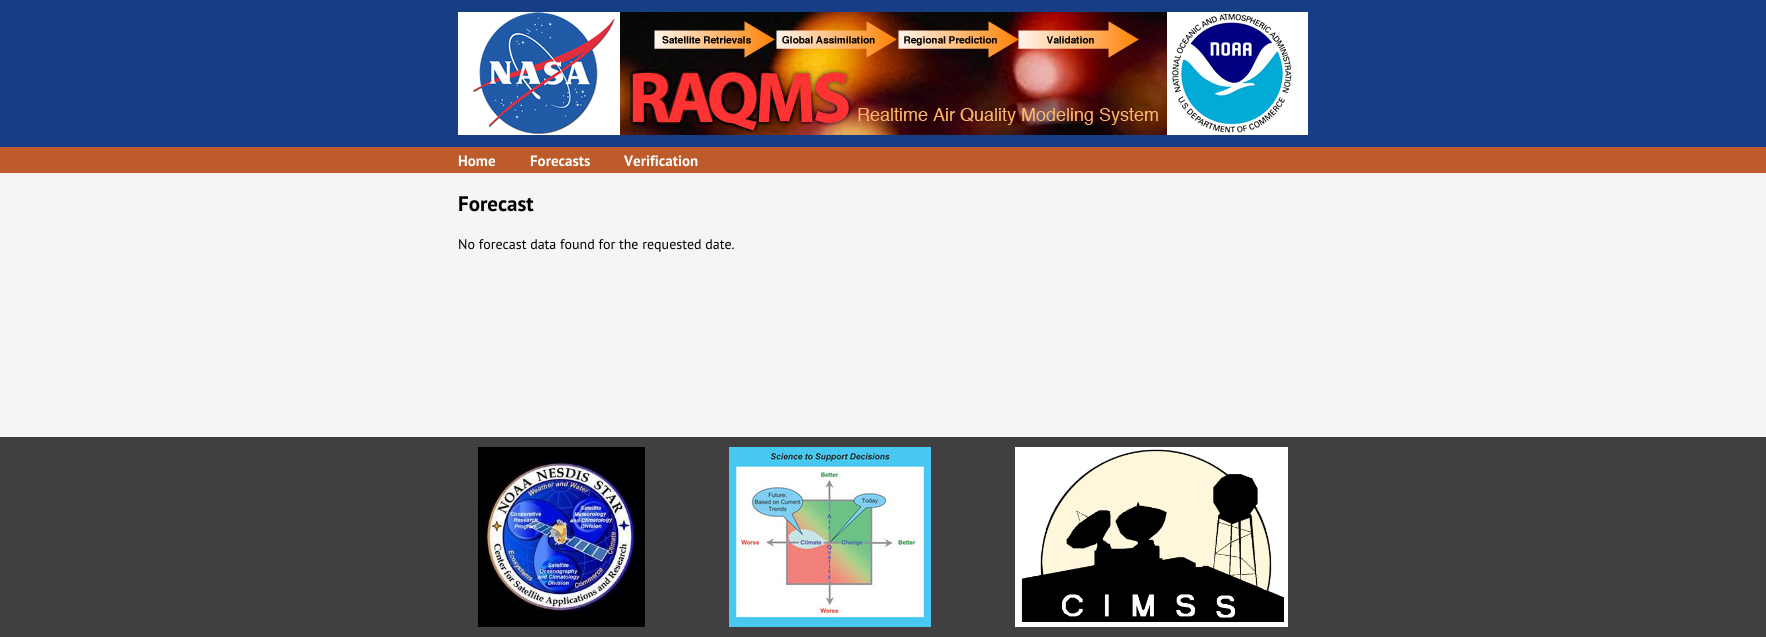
import math
import cairo

surface = cairo.ImageSurface(cairo.Format.RGB24, 1766, 637)
ctx = cairo.Context(surface)
options = cairo.FontOptions()
options.set_hint_metrics(cairo.HintMetrics.OFF)
options.set_hint_style(cairo.HintStyle.NONE)
ctx.set_font_options(options)
ctx.set_miter_limit(4)


def ink(r, g, b):
    ctx.set_source_rgb(r / 255, g / 255, b / 255)


def write(x, y, s, family, size, color, bold=False, italic=False):
    ctx.select_font_face(family, cairo.FontSlant.ITALIC if italic else cairo.FontSlant.NORMAL, cairo.FontWeight.BOLD if bold else cairo.FontWeight.NORMAL)
    ctx.set_font_size(size)
    ink(*color)
    ctx.move_to(x, y)
    ctx.show_text(s)


def block(x, y, w, h, *color):
    ink(*color)
    ctx.rectangle(x, y, w, h)
    ctx.fill()


def paste(path, x, y, w, h):
    ctx.save()
    ctx.set_source_surface(cairo.ImageSurface.create_from_png(path), x, y)
    ctx.rectangle(x, y, w, h)
    ctx.fill()
    ctx.restore()


s1 = dict(family="PT Sans", size=15, color=(255, 255, 255), bold=True)
s2 = dict(family="PT Sans", size=21, color=(0, 0, 0), bold=True)
s3 = dict(family="PT Sans", size=14, color=(0, 0, 0))

ink(245, 245, 245)
ctx.paint()
block(0, 0, 1766, 147, 23, 61, 133)
block(458, 12, 850, 123, 255, 255, 255)
paste("pic1.png", 472, 12, 143, 123)
paste("pic2.png", 620, 12, 547, 123)
paste("pic3.png", 1172, 13, 120, 120)
block(0, 147, 1766, 26, 189, 91, 42)
write(458, 166, "Home", **s1)
write(530, 166, "Forecasts", **s1)
write(624, 166, "Verification", **s1)
write(458, 211, "Forecast", **s2)
write(458, 249, "No forecast data found for the requested date.", **s3)
block(0, 437, 1766, 200, 64, 64, 64)
paste("pic4.png", 478, 447, 167, 180)
paste("pic5.png", 729, 447, 202, 180)
paste("pic6.png", 1015, 447, 273, 180)
surface.write_to_png("screenshot.png")
